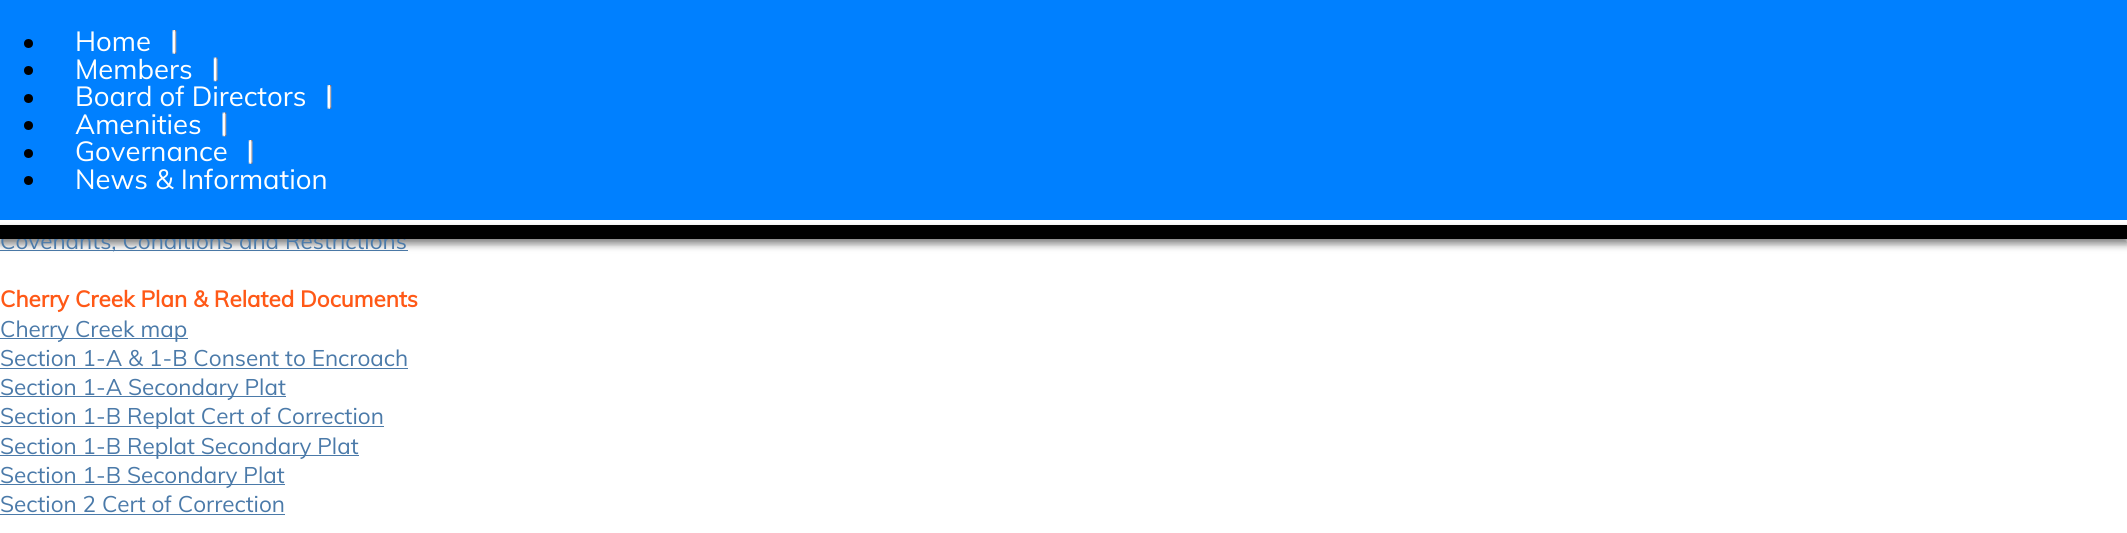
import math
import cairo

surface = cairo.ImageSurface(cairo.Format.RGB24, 2127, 533)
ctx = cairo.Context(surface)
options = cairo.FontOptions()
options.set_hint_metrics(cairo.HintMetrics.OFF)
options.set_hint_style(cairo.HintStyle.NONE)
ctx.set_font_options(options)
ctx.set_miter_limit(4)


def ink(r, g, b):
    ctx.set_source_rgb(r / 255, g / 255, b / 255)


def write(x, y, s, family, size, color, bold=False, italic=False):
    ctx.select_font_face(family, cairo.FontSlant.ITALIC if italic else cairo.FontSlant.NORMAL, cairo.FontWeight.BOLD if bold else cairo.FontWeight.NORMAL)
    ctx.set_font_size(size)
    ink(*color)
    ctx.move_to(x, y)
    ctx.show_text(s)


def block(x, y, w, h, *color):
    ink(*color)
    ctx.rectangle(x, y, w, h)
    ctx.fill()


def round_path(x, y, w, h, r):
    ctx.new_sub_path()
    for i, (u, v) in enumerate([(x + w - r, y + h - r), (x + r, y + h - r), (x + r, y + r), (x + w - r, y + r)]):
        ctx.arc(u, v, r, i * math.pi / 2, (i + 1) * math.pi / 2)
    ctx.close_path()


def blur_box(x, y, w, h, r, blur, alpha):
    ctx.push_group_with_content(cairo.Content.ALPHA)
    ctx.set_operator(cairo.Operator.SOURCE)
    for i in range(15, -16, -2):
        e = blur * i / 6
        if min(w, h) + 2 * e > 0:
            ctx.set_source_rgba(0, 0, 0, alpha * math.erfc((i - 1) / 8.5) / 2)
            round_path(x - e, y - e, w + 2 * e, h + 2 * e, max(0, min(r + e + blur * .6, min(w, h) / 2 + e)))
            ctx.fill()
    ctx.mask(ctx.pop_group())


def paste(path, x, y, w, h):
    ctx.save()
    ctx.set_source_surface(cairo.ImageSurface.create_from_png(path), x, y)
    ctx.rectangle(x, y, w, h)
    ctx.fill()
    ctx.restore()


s1 = dict(family="Muli", size=27.5, color=(255, 255, 255))
s2 = dict(family="Muli", size=22.5, color=(75, 122, 169))
s3 = dict(family="Muli", size=22.5, color=(255, 89, 23), bold=True)

ink(255, 255, 255)
ctx.paint()
block(0, 0, 2127, 220, 0, 128, 255)
ink(0, 0, 0)
ctx.arc(28.5, 43.5, 4.5, 0, 2 * math.pi)
ctx.fill()
write(75, 51, "Home", **s1)
paste("pic1.png", 172, 30, 5, 24)
ink(0, 0, 0)
ctx.arc(28.5, 70.5, 4.5, 0, 2 * math.pi)
ctx.fill()
write(75, 79, "Members", **s1)
paste("pic2.png", 213, 57, 5, 25)
ink(0, 0, 0)
ctx.arc(28.5, 98.5, 4.5, 0, 2 * math.pi)
ctx.fill()
write(75, 106, "Board of Directors", **s1)
paste("pic1.png", 327, 85, 5, 24)
ink(0, 0, 0)
ctx.arc(28.5, 125.5, 4.5, 0, 2 * math.pi)
ctx.fill()
write(75, 134, "Amenities", **s1)
paste("pic3.png", 222, 112, 5, 25)
ink(0, 0, 0)
ctx.arc(28.5, 153.5, 4.5, 0, 2 * math.pi)
ctx.fill()
write(75, 161, "Governance", **s1)
paste("pic4.png", 248, 140, 5, 24)
ink(0, 0, 0)
ctx.arc(28.5, 180.5, 4.5, 0, 2 * math.pi)
ctx.fill()
write(75, 189, "News & Information", **s1)
block(0, 250, 408, 1, 75, 122, 169)
ink(0, 0, 0)
blur_box(0, 230, 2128, 14, 0, 4, 0.5)
write(0, 249, "Covenants, Conditions and Restrictions", **s2)
block(0, 225, 2127, 14, 0, 0, 0)
write(0, 307, "Cherry Creek Plan & Related Documents", **s3)
block(0, 338, 188, 1, 75, 122, 169)
write(0, 337, "Cherry Creek map", **s2)
write(0, 366, "Section 1-A & 1-B Consent to Encroach", **s2)
block(0, 368, 408, 1, 75, 122, 169)
block(0, 396, 286, 1, 75, 122, 169)
write(0, 395, "Section 1-A Secondary Plat", **s2)
block(0, 426, 384, 1, 75, 122, 169)
write(0, 424, "Section 1-B Replat Cert of Correction", **s2)
block(0, 455, 359, 1, 75, 122, 169)
write(0, 454, "Section 1-B Replat Secondary Plat", **s2)
block(0, 484, 285, 1, 75, 122, 169)
write(0, 483, "Section 1-B Secondary Plat", **s2)
write(0, 512, "Section 2 Cert of Correction", **s2)
block(0, 514, 285, 1, 75, 122, 169)
surface.write_to_png("screenshot.png")
